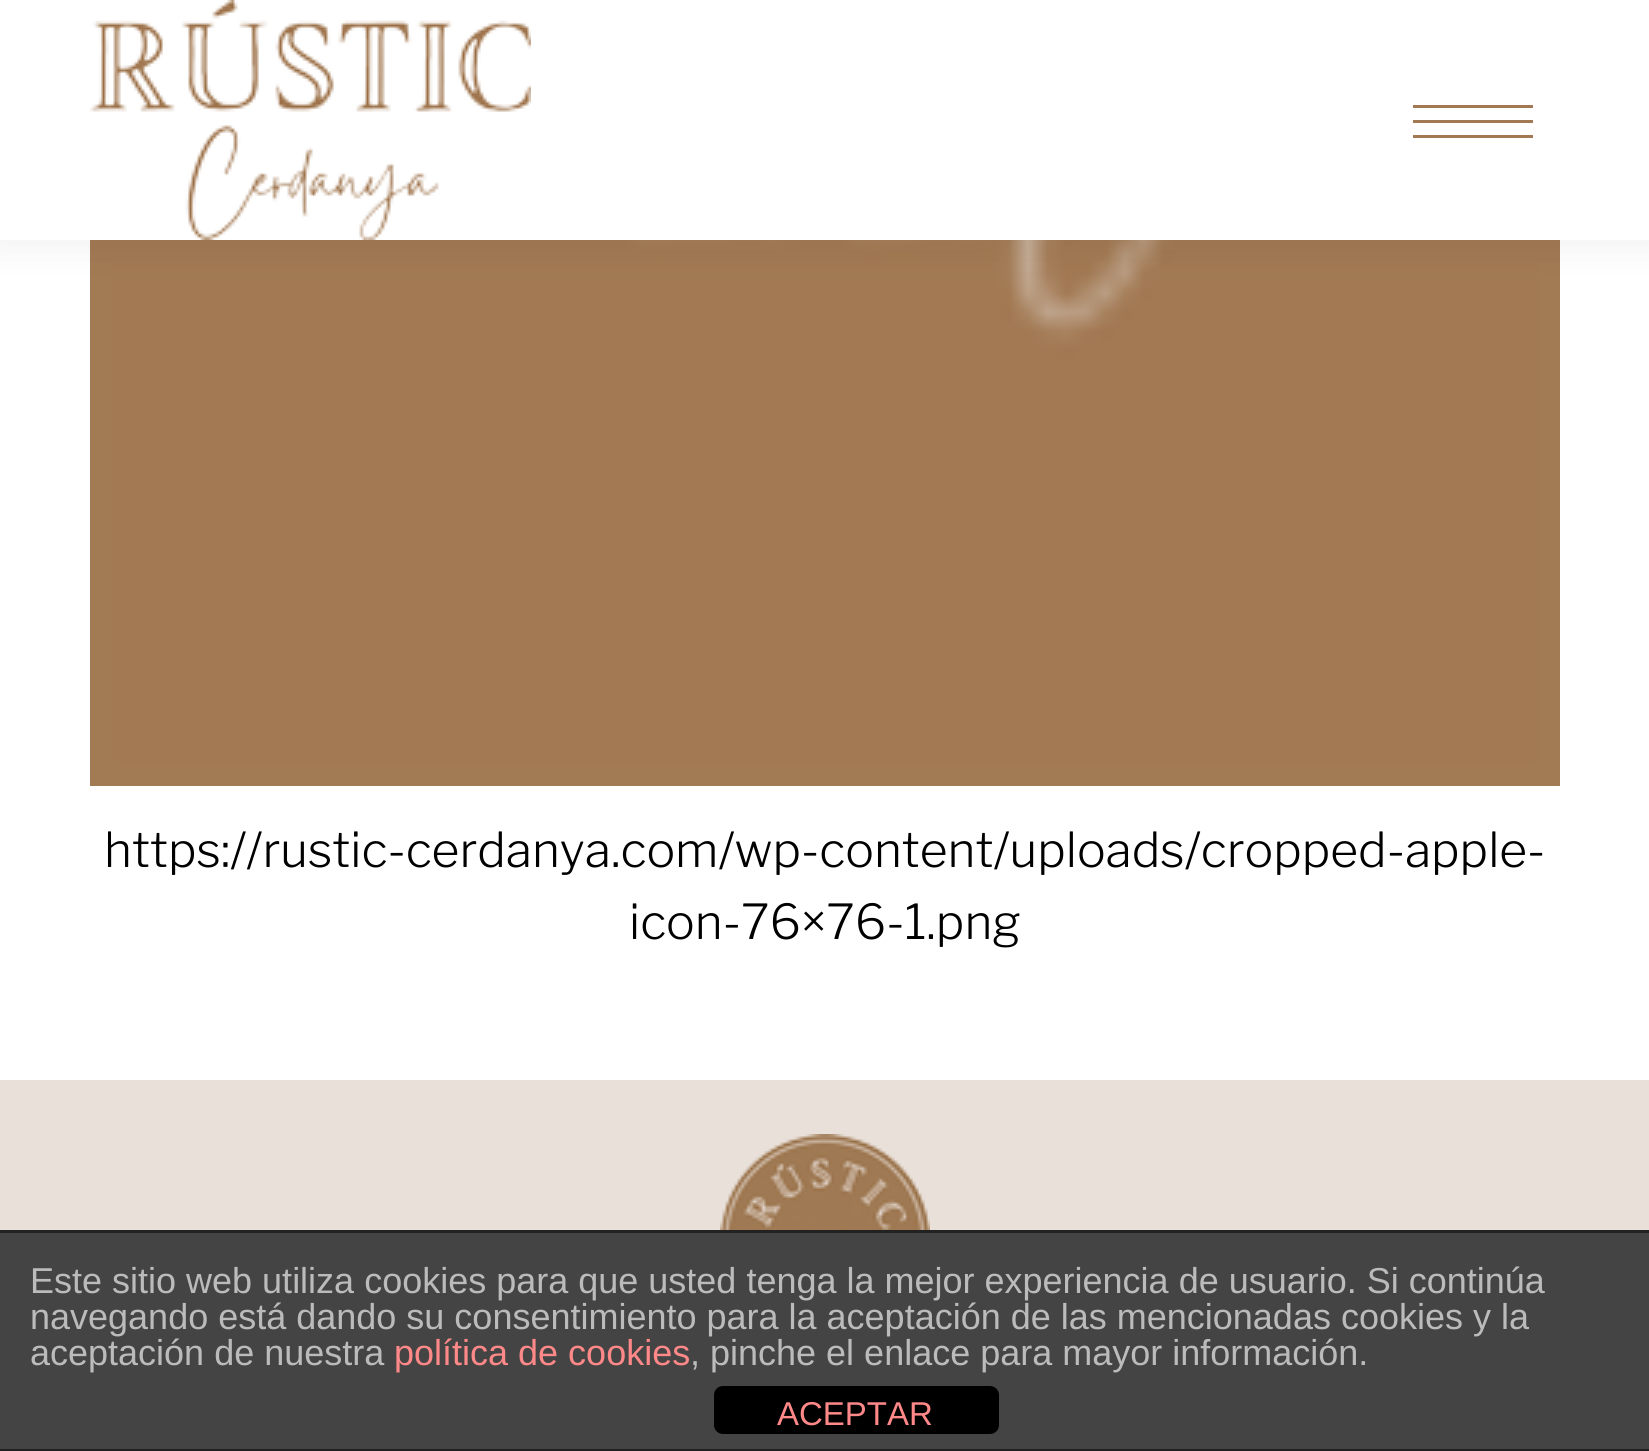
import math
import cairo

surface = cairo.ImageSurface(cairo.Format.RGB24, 1649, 1451)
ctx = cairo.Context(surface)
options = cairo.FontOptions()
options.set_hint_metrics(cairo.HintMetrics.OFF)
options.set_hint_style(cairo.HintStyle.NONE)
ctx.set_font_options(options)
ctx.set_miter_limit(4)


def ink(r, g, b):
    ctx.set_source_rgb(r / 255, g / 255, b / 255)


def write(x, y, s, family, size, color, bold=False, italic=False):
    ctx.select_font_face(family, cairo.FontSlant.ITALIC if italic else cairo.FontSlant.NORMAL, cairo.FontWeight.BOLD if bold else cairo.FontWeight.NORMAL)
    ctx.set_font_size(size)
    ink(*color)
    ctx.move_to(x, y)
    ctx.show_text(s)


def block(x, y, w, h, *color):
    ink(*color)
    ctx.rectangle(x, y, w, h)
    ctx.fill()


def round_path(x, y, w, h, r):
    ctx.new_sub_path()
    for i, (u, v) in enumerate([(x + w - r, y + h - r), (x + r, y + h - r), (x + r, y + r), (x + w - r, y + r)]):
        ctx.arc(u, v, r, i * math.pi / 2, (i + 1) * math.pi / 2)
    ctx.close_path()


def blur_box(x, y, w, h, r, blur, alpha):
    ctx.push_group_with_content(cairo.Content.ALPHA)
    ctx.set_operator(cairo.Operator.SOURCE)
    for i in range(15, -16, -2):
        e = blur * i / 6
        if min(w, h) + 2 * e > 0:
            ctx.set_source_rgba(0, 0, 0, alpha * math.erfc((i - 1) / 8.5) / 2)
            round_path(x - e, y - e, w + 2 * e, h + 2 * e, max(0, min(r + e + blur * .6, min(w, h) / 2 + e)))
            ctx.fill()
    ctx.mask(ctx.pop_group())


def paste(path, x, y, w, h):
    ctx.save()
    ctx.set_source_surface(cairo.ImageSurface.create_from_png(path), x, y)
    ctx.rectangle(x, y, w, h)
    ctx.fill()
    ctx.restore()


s1 = dict(family="Libre Franklin Light", size=48, color=(0, 0, 0))
s2 = dict(family="Liberation Sans", size=36, color=(187, 187, 187))
s3 = dict(family="Liberation Sans", size=36, color=(255, 136, 136))
s4 = dict(family="Liberation Sans", size=33, color=(255, 136, 136))

ink(255, 255, 255)
ctx.paint()
paste("pic2.png", 90, 240, 1470, 546)
ink(0, 0, 0)
blur_box(-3, -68, 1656, 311, 0, 22.5, 0.07)
block(0, 0, 1649, 240, 255, 255, 255)
paste("pic1.png", 90, 0, 441, 240)
block(1413, 105, 120, 3, 162, 121, 83)
block(1413, 120, 120, 3, 162, 121, 83)
block(1413, 135, 120, 3, 162, 121, 83)
write(104, 867, "https://rustic-cerdanya.com/wp-content/uploads/cropped-apple-", **s1)
write(629, 939, "icon-76×76-1.png", **s1)
block(0, 1080, 1649, 150, 232, 224, 217)
paste("pic3.png", 720, 1134, 210, 96)
block(0, 1233, 1649, 216, 68, 68, 68)
block(0, 1230, 1649, 3, 34, 34, 34)
block(0, 1449, 1649, 2, 34, 34, 34)
write(30, 1293, "Este sitio web utiliza cookies para que usted tenga la mejor experiencia de usuario. Si continúa", **s2)
write(30, 1329, "navegando está dando su consentimiento para la aceptación de las mencionadas cookies y la", **s2)
write(30, 1365, "aceptación de nuestra", **s2)
write(394, 1365, "política de cookies", **s3)
write(690, 1365, ", pinche el enlace para mayor información.", **s2)
ink(0, 0, 0)
round_path(714, 1386, 285, 48, 9)
ctx.fill()
write(777, 1425, "ACEPTAR", **s4)
surface.write_to_png("screenshot.png")
